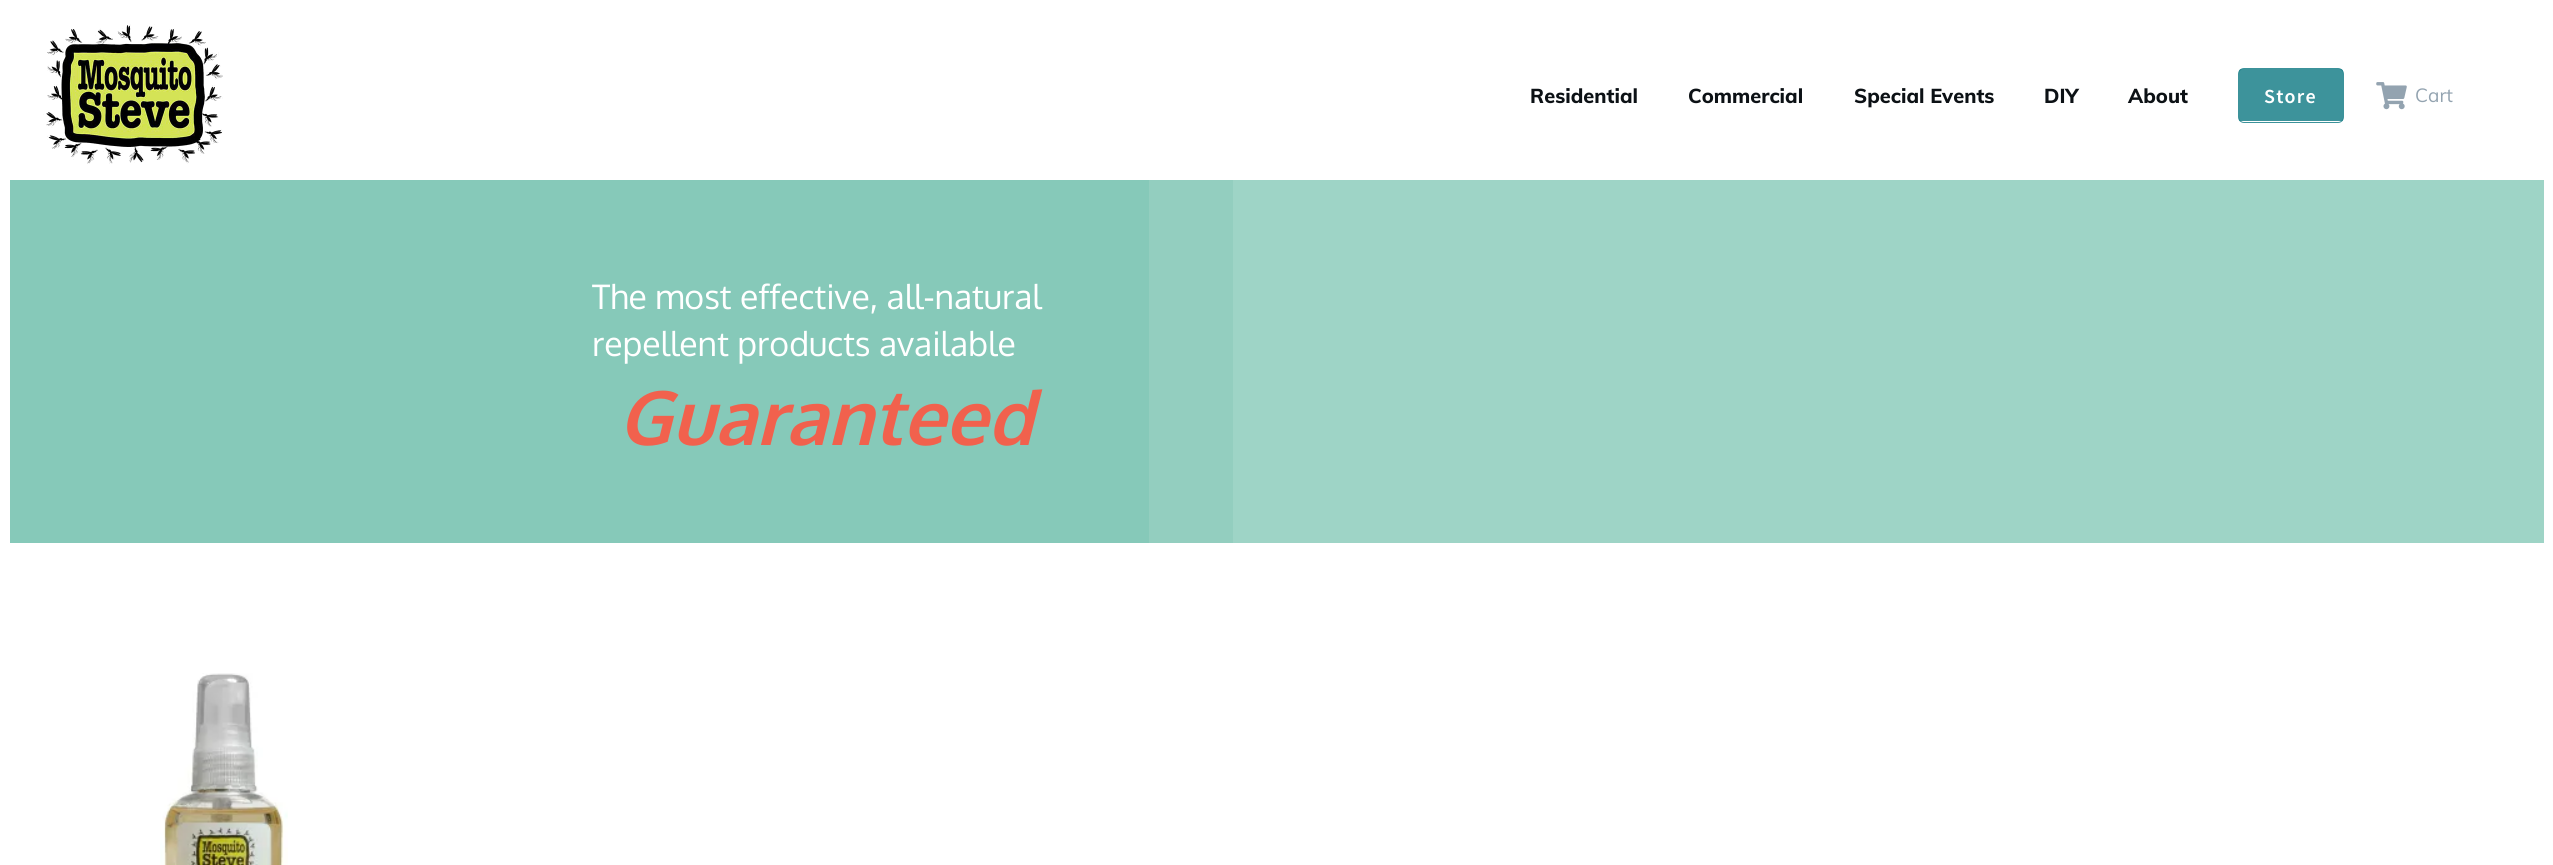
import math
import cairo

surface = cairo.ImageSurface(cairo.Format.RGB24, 2553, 865)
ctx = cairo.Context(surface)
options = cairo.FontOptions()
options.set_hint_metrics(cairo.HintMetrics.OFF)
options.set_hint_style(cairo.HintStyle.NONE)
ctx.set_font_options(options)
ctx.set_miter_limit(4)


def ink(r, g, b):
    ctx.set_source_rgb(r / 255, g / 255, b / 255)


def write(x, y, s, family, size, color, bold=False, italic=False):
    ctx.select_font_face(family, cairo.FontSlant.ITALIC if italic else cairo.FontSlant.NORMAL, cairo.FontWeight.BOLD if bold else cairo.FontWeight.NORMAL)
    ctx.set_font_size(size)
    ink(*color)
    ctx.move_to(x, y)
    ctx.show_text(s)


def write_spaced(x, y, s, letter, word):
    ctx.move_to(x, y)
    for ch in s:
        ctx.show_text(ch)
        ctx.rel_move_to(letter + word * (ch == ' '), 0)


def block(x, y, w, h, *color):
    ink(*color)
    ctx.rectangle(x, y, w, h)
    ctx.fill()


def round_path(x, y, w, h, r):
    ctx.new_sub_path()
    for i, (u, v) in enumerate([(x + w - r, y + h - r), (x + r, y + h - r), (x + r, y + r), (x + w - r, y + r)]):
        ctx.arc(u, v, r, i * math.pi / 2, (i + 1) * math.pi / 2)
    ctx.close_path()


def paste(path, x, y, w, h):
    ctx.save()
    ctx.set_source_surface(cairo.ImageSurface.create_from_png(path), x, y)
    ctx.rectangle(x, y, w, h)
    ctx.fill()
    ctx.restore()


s1 = dict(family="Muli ExtraBold", size=20, color=(12, 17, 21))
s2 = dict(family="Muli", size=19, color=(147, 163, 176))
s3 = dict(family="Oxygen", size=33.75, color=(255, 255, 255))
s4 = dict(family="Oxygen", size=75, color=(241, 97, 77), bold=True, italic=True)

ink(255, 255, 255)
ctx.paint()
paste("pic1.png", 43, 24, 180, 140)
write(1530, 103, "Residential", **s1)
write(1688, 103, "Commercial", **s1)
write(1854, 103, "Special Events", **s1)
write(2044, 103, "DIY", **s1)
write(2128, 103, "About", **s1)
ctx.save()
round_path(2238, 68, 106, 55, 6)
ctx.clip()
block(2239, 69, 104, 52, 61, 147, 155)
ctx.restore()
round_path(2238.5, 68.5, 105, 54, 5.5)
ctx.set_source_rgba(0.137, 0.518, 0.553, 0.88)
ctx.set_line_width(1)
ctx.stroke()
ctx.select_font_face("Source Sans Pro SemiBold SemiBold")
ink(255, 255, 255)
write_spaced(2264, 103, "Store", 1.25, 0)
paste("pic2.png", 2376, 82, 31, 28)
write(2415, 102, "Cart", **s2)
block(10, 180, 1139, 363, 134, 201, 185)
write(592, 309, "The most effective, all-natural", **s3)
write(592, 356, "repellent products available", **s3)
write(618, 445, "Guaranteed", **s4)
block(1149, 180, 84, 363, 147, 206, 191)
block(1233, 180, 1311, 363, 158, 212, 198)
paste("pic3.png", 160, 673, 128, 192)
surface.write_to_png("screenshot.png")
